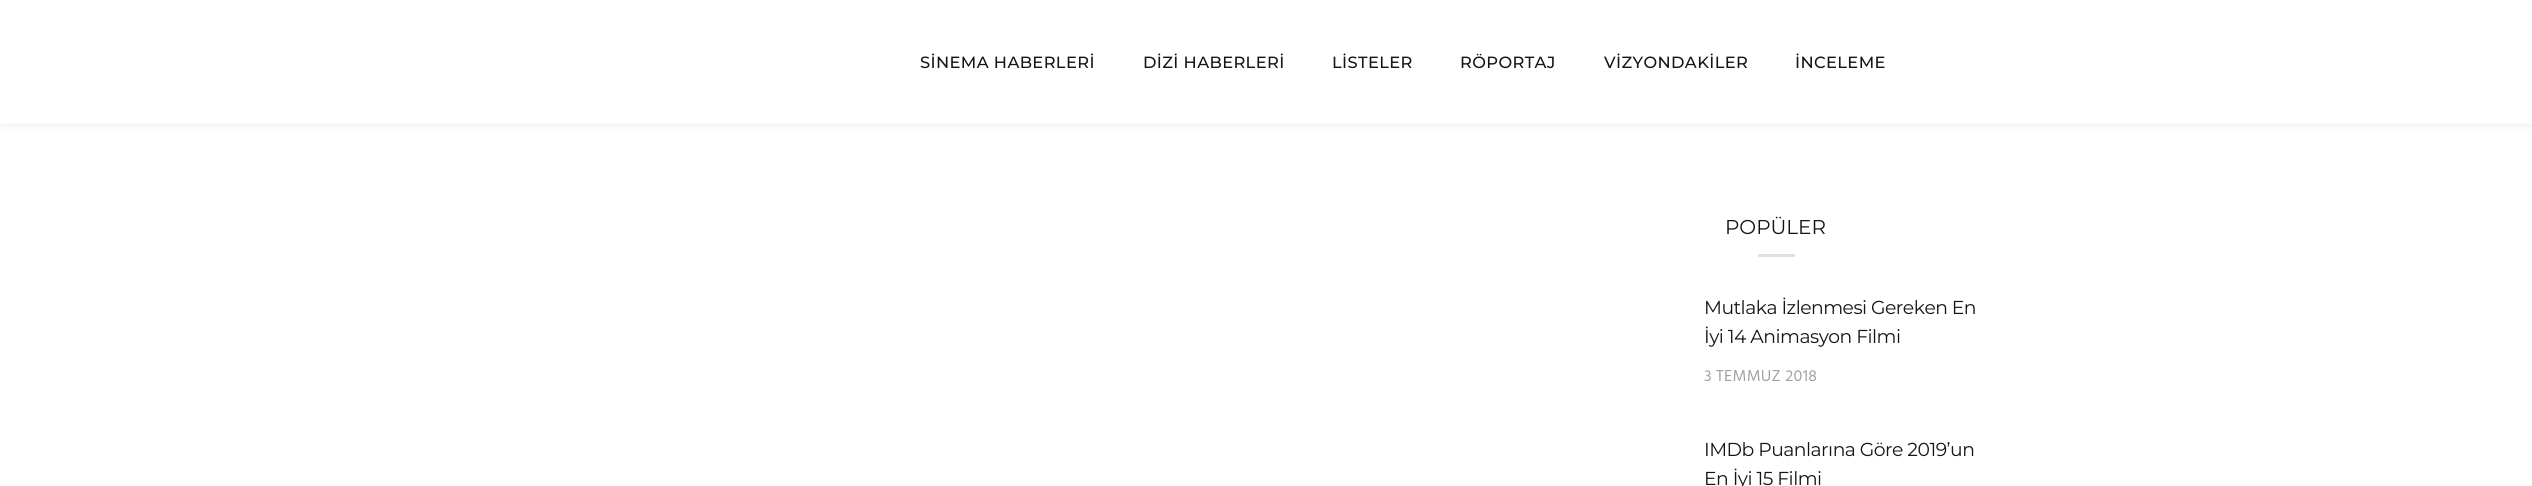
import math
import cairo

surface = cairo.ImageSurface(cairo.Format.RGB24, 2532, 486)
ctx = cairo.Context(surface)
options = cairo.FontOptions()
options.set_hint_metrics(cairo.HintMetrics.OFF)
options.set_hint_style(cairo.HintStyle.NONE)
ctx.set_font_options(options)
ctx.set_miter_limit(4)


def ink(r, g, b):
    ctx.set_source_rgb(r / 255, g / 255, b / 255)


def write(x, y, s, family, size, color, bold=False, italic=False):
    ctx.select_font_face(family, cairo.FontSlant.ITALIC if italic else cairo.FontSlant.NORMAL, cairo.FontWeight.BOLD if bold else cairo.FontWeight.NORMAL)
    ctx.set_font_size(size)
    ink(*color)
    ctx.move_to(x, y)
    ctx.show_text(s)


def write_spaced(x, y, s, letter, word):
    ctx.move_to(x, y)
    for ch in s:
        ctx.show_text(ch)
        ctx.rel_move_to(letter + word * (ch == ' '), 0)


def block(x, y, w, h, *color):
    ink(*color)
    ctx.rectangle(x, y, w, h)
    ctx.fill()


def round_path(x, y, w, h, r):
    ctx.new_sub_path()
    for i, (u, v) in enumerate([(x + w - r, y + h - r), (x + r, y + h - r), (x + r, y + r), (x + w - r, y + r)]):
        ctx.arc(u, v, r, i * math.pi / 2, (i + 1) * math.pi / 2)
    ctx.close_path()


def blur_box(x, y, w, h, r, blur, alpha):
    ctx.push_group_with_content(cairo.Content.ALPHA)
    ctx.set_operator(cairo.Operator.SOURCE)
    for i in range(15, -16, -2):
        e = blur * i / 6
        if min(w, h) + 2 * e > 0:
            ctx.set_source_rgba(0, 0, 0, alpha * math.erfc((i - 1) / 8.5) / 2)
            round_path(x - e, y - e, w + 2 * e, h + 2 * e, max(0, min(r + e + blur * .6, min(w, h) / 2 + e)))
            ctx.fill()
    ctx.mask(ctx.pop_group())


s1 = dict(family="Montserrat", size=20, color=(21, 21, 21))

ink(255, 255, 255)
ctx.paint()
ink(235, 235, 235)
blur_box(1, 3, 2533, 123, 0, 3, 0.75)
block(0, 0, 2532, 124, 255, 255, 255)
ctx.select_font_face("Montserrat Medium")
ctx.set_font_size(16.25)
ink(21, 21, 21)
write_spaced(920, 68, "SİNEMA HABERLERİ", 0.4, 0)
write_spaced(1143, 68, "DİZİ HABERLERİ", 0.4, 0)
write_spaced(1332, 68, "LİSTELER", 0.4, 0)
write_spaced(1460, 68, "RÖPORTAJ", 0.4, 0)
write_spaced(1604, 68, "VİZYONDAKİLER", 0.4, 0)
write_spaced(1795, 68, "İNCELEME", 0.4, 0)
write(1725, 234, "POPÜLER", **s1)
block(1758, 254, 37, 3, 225, 225, 225)
ctx.set_font_size(18.75)
ink(21, 21, 21)
write_spaced(1704, 314, "Mutlaka İzlenmesi Gereken En", -0.5, 0)
write_spaced(1704, 343, "İyi 14 Animasyon Filmi", -0.5, 0)
ctx.select_font_face("Hind")
ctx.set_font_size(16.25)
ink(161, 161, 161)
write_spaced(1704, 381, "3 TEMMUZ 2018", 0.25, 0)
ctx.select_font_face("Montserrat")
ctx.set_font_size(18.75)
ink(21, 21, 21)
write_spaced(1704, 456, "IMDb Puanlarına Göre 2019’un", -0.5, 0)
write_spaced(1704, 485, "En İyi 15 Filmi", -0.5, 0)
surface.write_to_png("screenshot.png")
